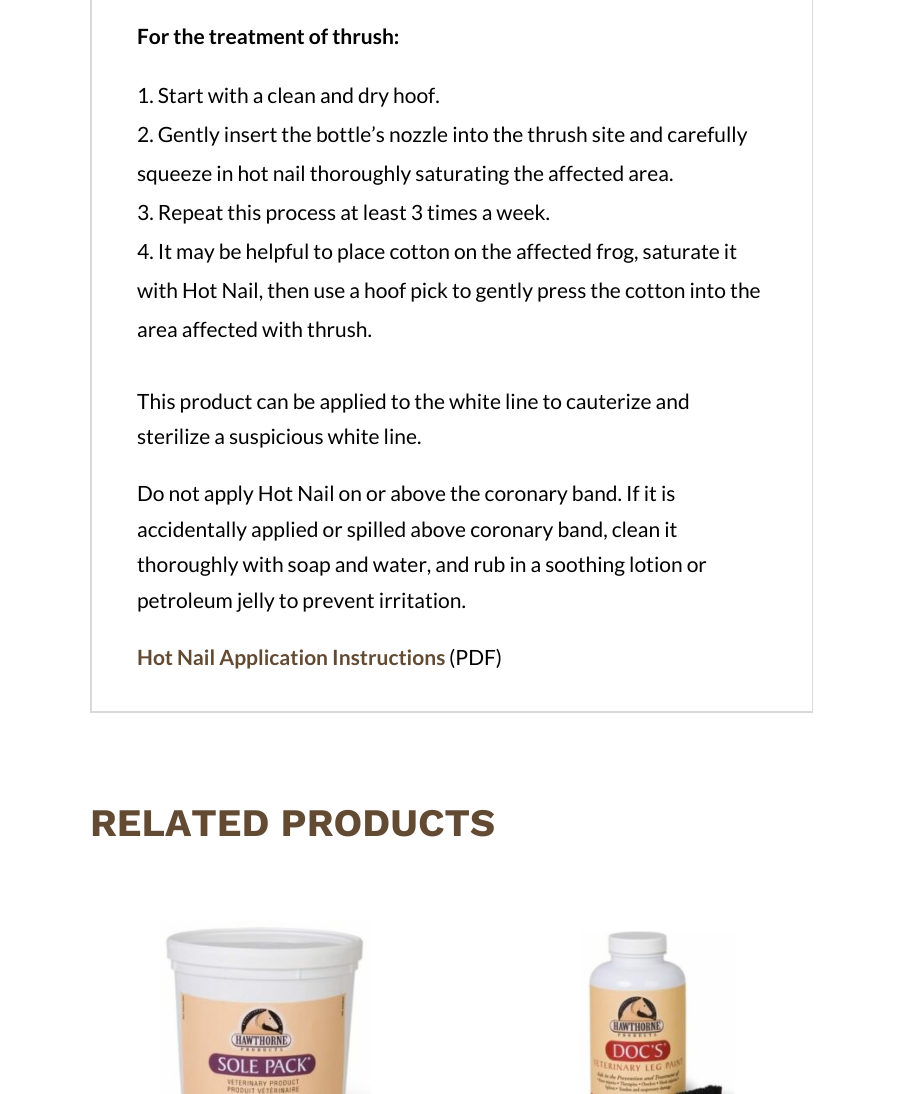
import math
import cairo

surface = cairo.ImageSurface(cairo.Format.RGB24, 903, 1094)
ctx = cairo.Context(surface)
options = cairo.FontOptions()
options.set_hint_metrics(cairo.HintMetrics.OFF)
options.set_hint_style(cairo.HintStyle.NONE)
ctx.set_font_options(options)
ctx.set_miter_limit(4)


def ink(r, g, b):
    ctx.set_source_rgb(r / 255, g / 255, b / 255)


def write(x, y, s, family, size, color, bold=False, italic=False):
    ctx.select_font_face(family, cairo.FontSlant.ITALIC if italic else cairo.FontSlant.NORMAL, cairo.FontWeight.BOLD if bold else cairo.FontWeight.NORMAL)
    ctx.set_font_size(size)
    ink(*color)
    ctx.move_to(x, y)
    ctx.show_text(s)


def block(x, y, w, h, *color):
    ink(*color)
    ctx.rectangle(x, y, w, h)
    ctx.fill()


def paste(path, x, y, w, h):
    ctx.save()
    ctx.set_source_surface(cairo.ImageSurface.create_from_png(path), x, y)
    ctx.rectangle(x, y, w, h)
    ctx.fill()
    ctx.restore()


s1 = dict(family="Lato", size=21, color=(0, 0, 0), bold=True)
s2 = dict(family="Lato", size=21, color=(0, 0, 0))
s3 = dict(family="Lato", size=21, color=(98, 74, 51), bold=True)
s4 = dict(family="Work Sans", size=39, color=(98, 74, 51), bold=True)

ink(255, 255, 255)
ctx.paint()
ctx.rectangle(91, -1, 721, 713)
ink(217, 217, 217)
ctx.stroke()
block(811, 0, 1, 711, 255, 255, 255)
write(137, 44, "For the treatment of thrush:", **s1)
write(137, 103, "1. Start with a clean and dry hoof.", **s2)
write(137, 142, "2. Gently insert the bottle’s nozzle into the thrush site and carefully", **s2)
write(137, 181, "squeeze in hot nail thoroughly saturating the affected area.", **s2)
write(137, 220, "3. Repeat this process at least 3 times a week.", **s2)
write(137, 259, "4. It may be helpful to place cotton on the affected frog, saturate it", **s2)
write(137, 298, "with Hot Nail, then use a hoof pick to gently press the cotton into the", **s2)
write(137, 337, "area affected with thrush.", **s2)
write(137, 409, "This product can be applied to the white line to cauterize and", **s2)
write(137, 444, "sterilize a suspicious white line.", **s2)
write(137, 501, "Do not apply Hot Nail on or above the coronary band. If it is", **s2)
write(137, 537, "accidentally applied or spilled above coronary band, clean it", **s2)
write(137, 572, "thoroughly with soap and water, and rub in a soothing lotion or", **s2)
write(137, 608, "petroleum jelly to prevent irritation.", **s2)
write(137, 665, "Hot Nail Application Instructions", **s3)
write(449, 665, "(PDF)", **s2)
write(90, 836, "RELATED PRODUCTS", **s4)
paste("pic1.png", 160, 921, 211, 173)
paste("pic2.png", 580, 931, 155, 163)
surface.write_to_png("screenshot.png")
